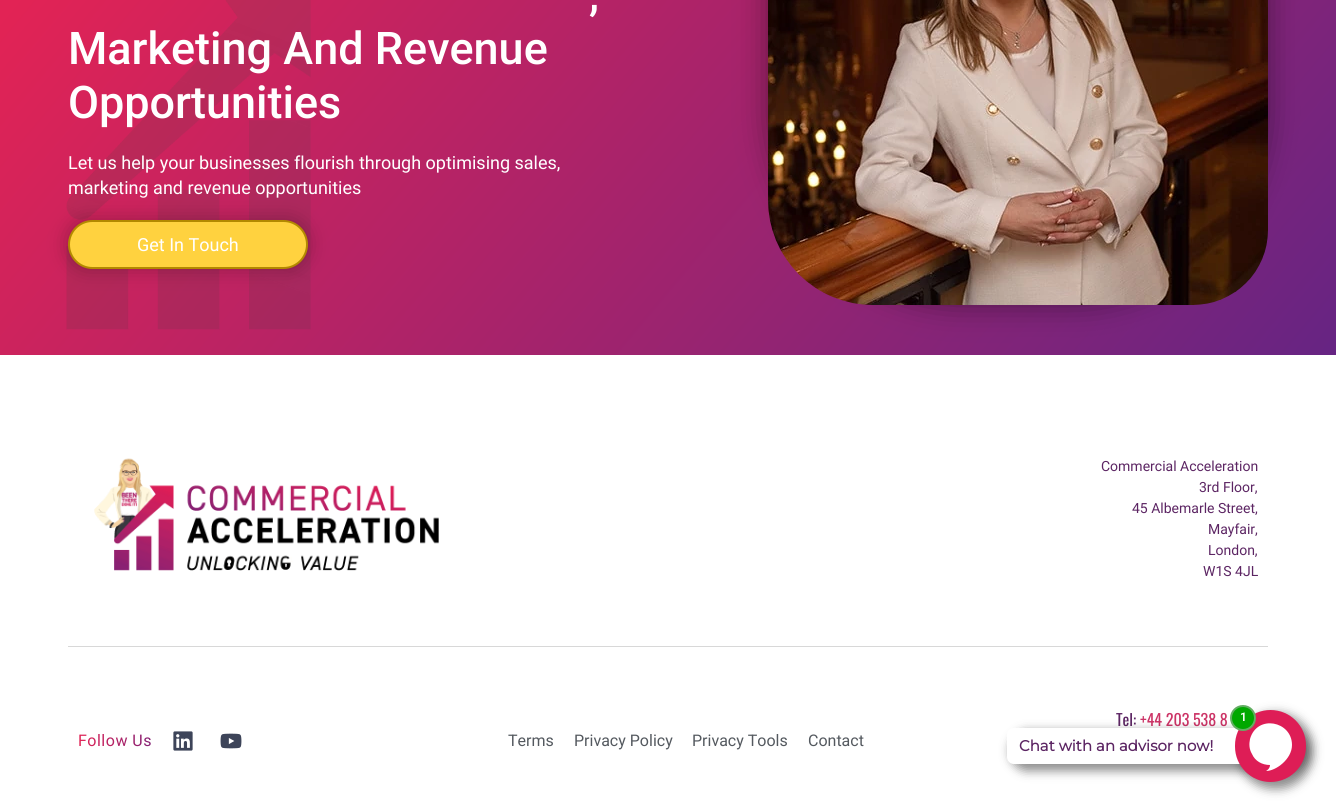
import math
import cairo

surface = cairo.ImageSurface(cairo.Format.RGB24, 1336, 812)
ctx = cairo.Context(surface)
options = cairo.FontOptions()
options.set_hint_metrics(cairo.HintMetrics.OFF)
options.set_hint_style(cairo.HintStyle.NONE)
ctx.set_font_options(options)
ctx.set_miter_limit(4)


def ink(r, g, b):
    ctx.set_source_rgb(r / 255, g / 255, b / 255)


def write(x, y, s, family, size, color, bold=False, italic=False):
    ctx.select_font_face(family, cairo.FontSlant.ITALIC if italic else cairo.FontSlant.NORMAL, cairo.FontWeight.BOLD if bold else cairo.FontWeight.NORMAL)
    ctx.set_font_size(size)
    ink(*color)
    ctx.move_to(x, y)
    ctx.show_text(s)


def write_spaced(x, y, s, letter, word):
    ctx.move_to(x, y)
    for ch in s:
        ctx.show_text(ch)
        ctx.rel_move_to(letter + word * (ch == ' '), 0)


def block(x, y, w, h, *color):
    ink(*color)
    ctx.rectangle(x, y, w, h)
    ctx.fill()


def round_path(x, y, w, h, r):
    ctx.new_sub_path()
    for i, (u, v) in enumerate([(x + w - r, y + h - r), (x + r, y + h - r), (x + r, y + r), (x + w - r, y + r)]):
        ctx.arc(u, v, r, i * math.pi / 2, (i + 1) * math.pi / 2)
    ctx.close_path()


def blur_box(x, y, w, h, r, blur, alpha):
    ctx.push_group_with_content(cairo.Content.ALPHA)
    ctx.set_operator(cairo.Operator.SOURCE)
    for i in range(15, -16, -2):
        e = blur * i / 6
        if min(w, h) + 2 * e > 0:
            ctx.set_source_rgba(0, 0, 0, alpha * math.erfc((i - 1) / 8.5) / 2)
            round_path(x - e, y - e, w + 2 * e, h + 2 * e, max(0, min(r + e + blur * .6, min(w, h) / 2 + e)))
            ctx.fill()
    ctx.mask(ctx.pop_group())


def paste(path, x, y, w, h):
    ctx.save()
    ctx.set_source_surface(cairo.ImageSurface.create_from_png(path), x, y)
    ctx.rectangle(x, y, w, h)
    ctx.fill()
    ctx.restore()


s1 = dict(family="Roboto Medium", size=45, color=(255, 255, 255))
s2 = dict(family="Roboto", size=18, color=(255, 255, 255))
s3 = dict(family="Roboto", size=14, color=(92, 37, 99))
s4 = dict(family="Oswald", size=16, color=(92, 37, 99))
s5 = dict(family="Oswald", size=16, color=(204, 51, 102))
s6 = dict(family="Roboto", size=16, color=(84, 89, 95))
s7 = dict(family="Roboto SemiBold", size=12, color=(255, 255, 255))
s8 = dict(family="Montserrat", size=15, color=(92, 37, 99), bold=True)

ink(255, 255, 255)
ctx.paint()
gradient = cairo.LinearGradient(146, -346, 1190, 530)
gradient.add_color_stop_rgba(0.09, 0.886, 0.137, 0.333, 1)
gradient.add_color_stop_rgba(1, 0.4, 0.141, 0.514, 1)
ctx.set_source(gradient)
ctx.rectangle(0, 0, 1336, 355)
ctx.fill()
paste("pic1.png", 66, 0, 245, 330)
write(589, 10, ",", **s1)
write(68, 64, "Marketing And Revenue", **s1)
write(68, 118, "Opportunities", **s1)
write(68, 169, "Let us help your businesses flourish through optimising sales,", **s2)
write(68, 194, "marketing and revenue opportunities", **s2)
ink(0, 0, 0)
blur_box(68, 220, 240, 49, 24.5, 10, 0.25)
ink(255, 210, 63)
round_path(69, 221, 238, 47, 23.5)
ctx.fill_preserve()
ink(179, 137, 0)
ctx.stroke()
write(137, 251, "Get In Touch", **s2)
ink(0, 0, 0)
blur_box(768, -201, 500, 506, 190, 15, 0.4)
paste("pic2.png", 768, 0, 500, 305)
paste("pic3.png", 94, 458, 345, 113)
write(1101, 471, "Commercial Acceleration", **s3)
write(1199, 492, "3rd Floor,", **s3)
write(1132, 513, "45 Albemarle Street,", **s3)
write(1208, 534, "Mayfair,", **s3)
write(1208, 555, "London,", **s3)
write(1203, 576, "W1S 4JL", **s3)
block(68, 646, 1200, 1, 216, 216, 216)
write(1116, 726, "Tel:", **s4)
write(1140, 726, "+44 203 538 8", **s5)
ctx.select_font_face("Roboto")
gradient = cairo.LinearGradient(78, 741, 152, 741)
gradient.add_color_stop_rgba(0, 0.886, 0.137, 0.333, 1)
gradient.add_color_stop_rgba(1, 0.518, 0.129, 0.455, 1)
ctx.set_source(gradient)
write_spaced(78, 746, "Follow Us", 0.5, 0)
paste("pic4.png", 173, 731, 20, 20)
paste("pic5.png", 220, 733, 22, 16)
write(508, 746, "Terms", **s6)
write(574, 746, "Privacy Policy", **s6)
write(692, 746, "Privacy Tools", **s6)
write(808, 746, "Contact", **s6)
ink(51, 51, 51)
blur_box(1238, 713, 75, 76, 37.5, 5, 0.55)
blur_box(1010, 731, 298, 40, 20, 5, 0.55)
ink(255, 255, 255)
ctx.new_path()
ctx.move_to(1014, 728)
ctx.line_to(1283, 728)
ctx.curve_to(1293, 728, 1301, 736, 1301, 746)
ctx.curve_to(1301, 756, 1293, 764, 1283, 764)
ctx.line_to(1014, 764)
ctx.curve_to(1010, 764, 1007, 761, 1007, 757)
ctx.line_to(1007, 735)
ctx.curve_to(1007, 731, 1010, 728, 1014, 728)
ctx.close_path()
ctx.fill()
gradient = cairo.LinearGradient(1223, 725, 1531, 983)
gradient.add_color_stop_rgba(0.3, 0.871, 0.114, 0.337, 1)
gradient.add_color_stop_rgba(0.5, 0.925, 0.471, 0.604, 1)
gradient.add_color_stop_rgba(0.67, 0.525, 0.071, 0.204, 1)
ctx.set_source(gradient)
round_path(1235, 710, 71, 72, 35.5)
ctx.fill()
ink(255, 255, 255)
ctx.new_path()
ctx.move_to(1292, 745)
ctx.curve_to(1292, 759, 1276, 771, 1266, 771)
ctx.curve_to(1266, 771, 1270, 769, 1270, 765)
ctx.curve_to(1262, 765, 1255, 761, 1252, 754)
ctx.curve_to(1249, 749, 1249, 744, 1250, 739)
ctx.curve_to(1257, 714, 1292, 721, 1292, 745)
ctx.close_path()
ctx.fill()
ink(0, 168, 0)
ctx.arc(1243, 718, 12, 0, 2 * math.pi)
ctx.fill_preserve()
ink(99, 174, 99)
ctx.stroke()
write(1240, 721, "1", **s7)
write(1019, 751, "Chat with an advisor now!", **s8)
surface.write_to_png("screenshot.png")
